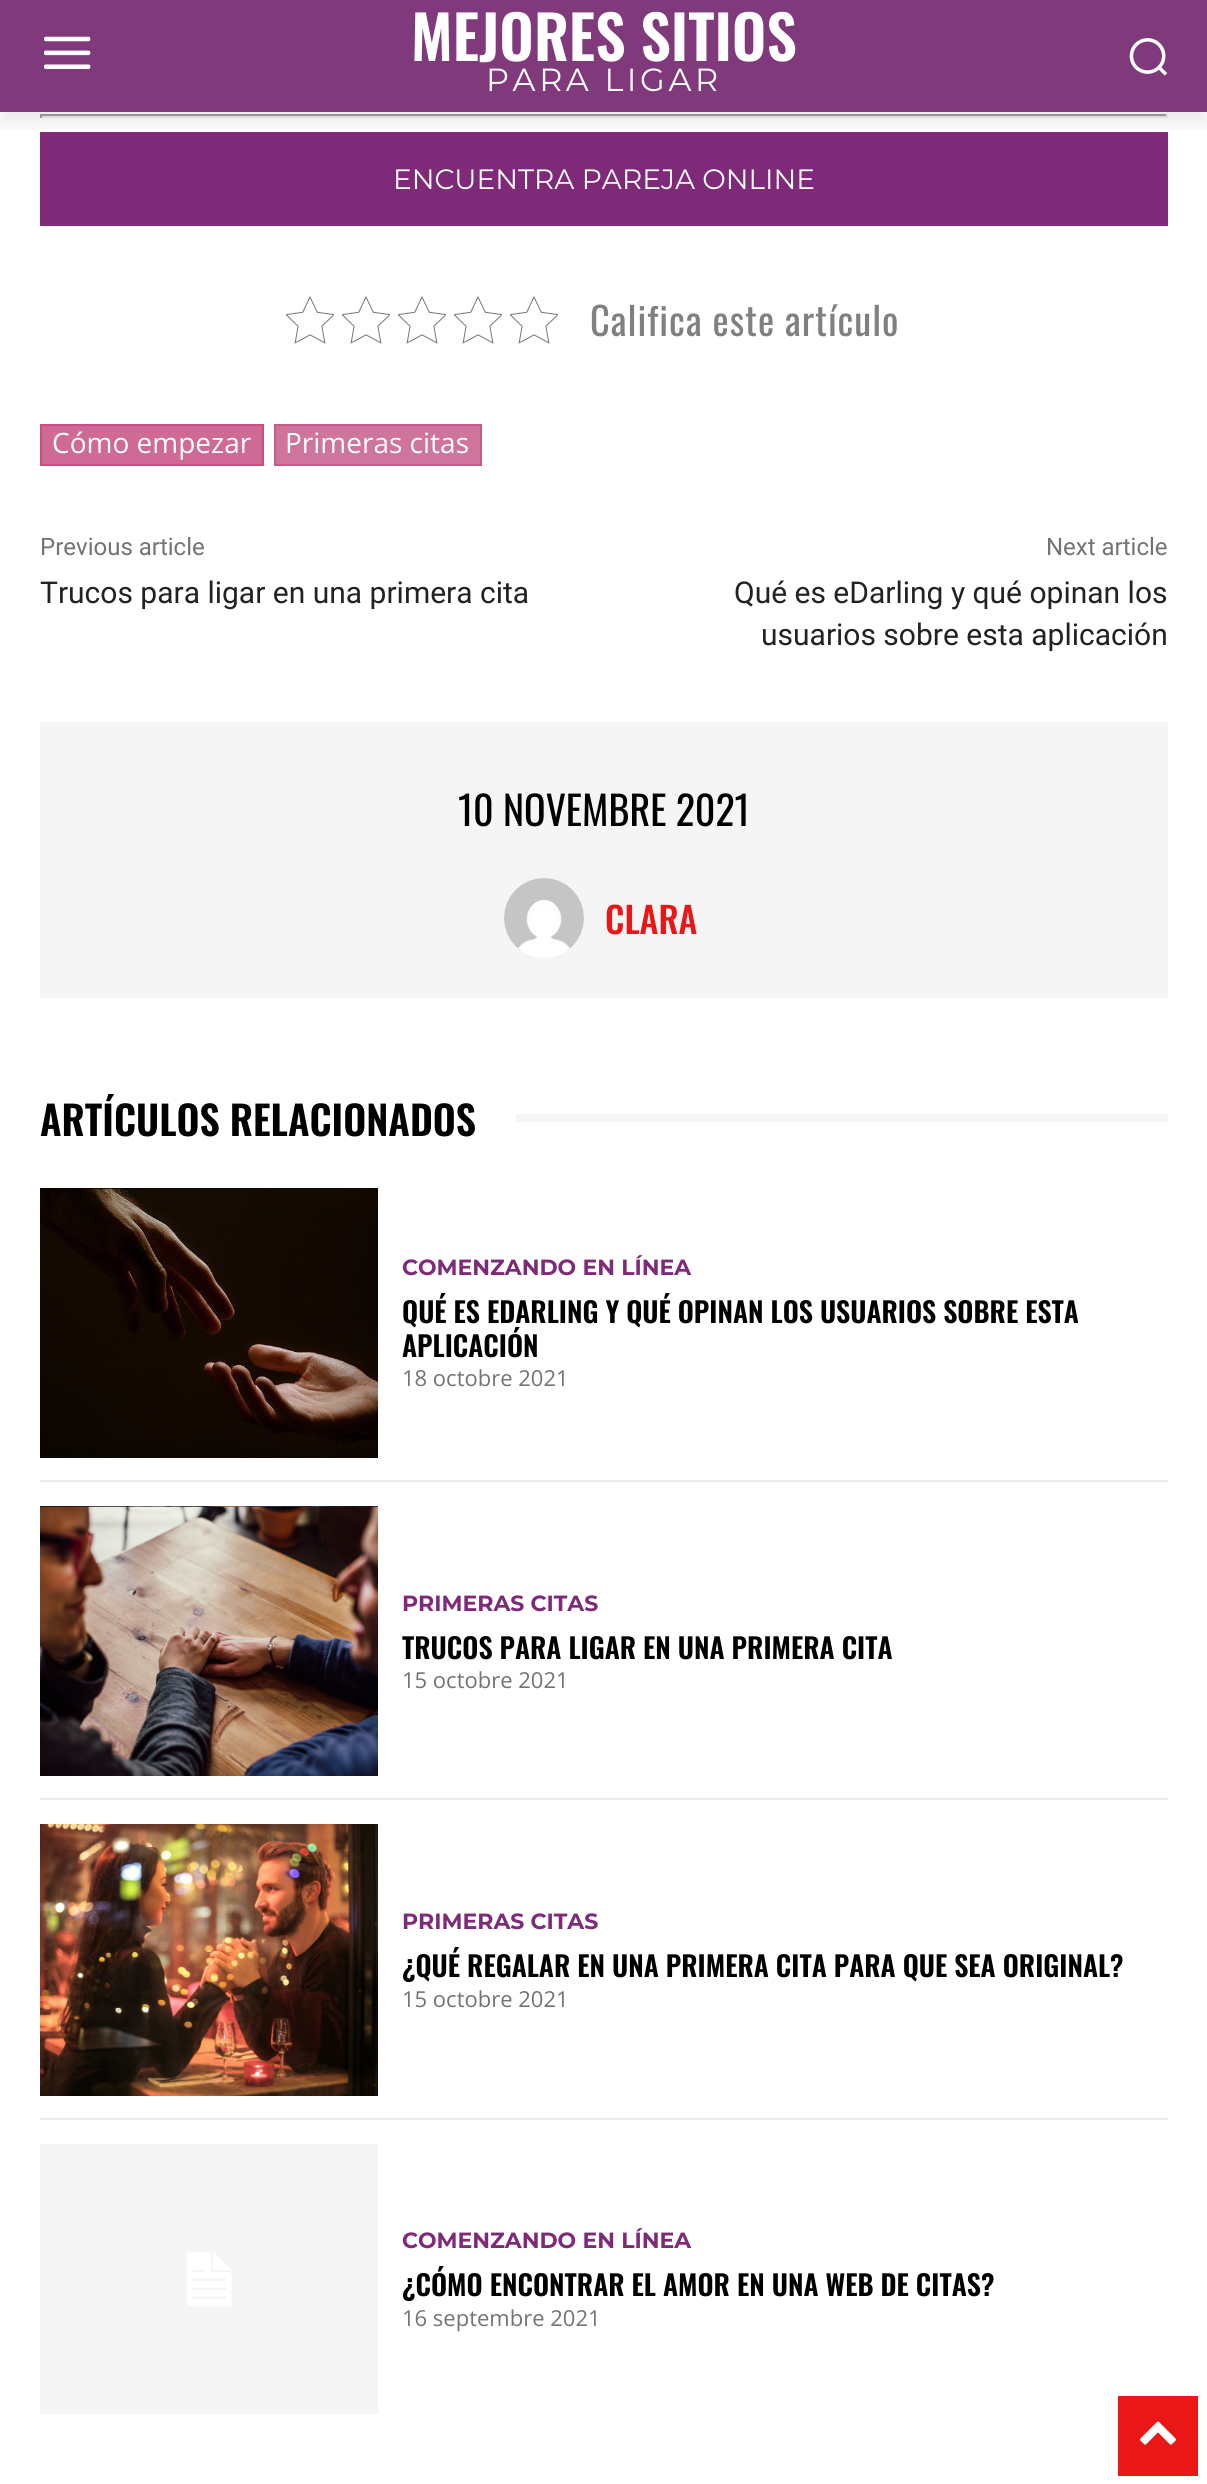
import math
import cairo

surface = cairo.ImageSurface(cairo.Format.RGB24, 1207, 2484)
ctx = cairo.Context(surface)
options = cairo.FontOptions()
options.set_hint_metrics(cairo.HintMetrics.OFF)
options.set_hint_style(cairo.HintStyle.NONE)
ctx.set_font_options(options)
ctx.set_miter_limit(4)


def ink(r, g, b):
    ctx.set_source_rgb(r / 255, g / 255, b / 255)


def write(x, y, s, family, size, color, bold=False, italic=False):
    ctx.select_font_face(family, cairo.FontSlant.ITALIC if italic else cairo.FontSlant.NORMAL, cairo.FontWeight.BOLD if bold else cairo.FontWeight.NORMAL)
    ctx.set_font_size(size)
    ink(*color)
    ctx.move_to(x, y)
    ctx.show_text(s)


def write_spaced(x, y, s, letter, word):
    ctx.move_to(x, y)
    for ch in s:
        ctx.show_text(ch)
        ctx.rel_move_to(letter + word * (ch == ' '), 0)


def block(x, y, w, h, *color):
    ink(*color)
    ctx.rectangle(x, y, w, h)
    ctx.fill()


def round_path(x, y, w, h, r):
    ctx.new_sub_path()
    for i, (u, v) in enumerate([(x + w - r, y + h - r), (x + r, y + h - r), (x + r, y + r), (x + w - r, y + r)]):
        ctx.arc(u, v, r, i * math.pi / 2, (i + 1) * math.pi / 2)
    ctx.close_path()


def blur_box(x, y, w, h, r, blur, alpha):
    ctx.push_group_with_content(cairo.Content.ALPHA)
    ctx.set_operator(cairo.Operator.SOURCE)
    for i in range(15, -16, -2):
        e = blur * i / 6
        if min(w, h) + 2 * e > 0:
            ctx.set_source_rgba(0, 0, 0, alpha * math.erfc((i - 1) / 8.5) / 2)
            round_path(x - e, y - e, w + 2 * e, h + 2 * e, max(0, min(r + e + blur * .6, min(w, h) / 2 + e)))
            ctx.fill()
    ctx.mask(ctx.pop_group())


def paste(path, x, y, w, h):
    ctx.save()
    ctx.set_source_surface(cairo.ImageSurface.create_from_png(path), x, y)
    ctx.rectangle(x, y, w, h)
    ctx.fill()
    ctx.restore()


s1 = dict(family="Oswald SemiBold", size=60, color=(255, 255, 255))
s2 = dict(family="Montserrat", size=28, color=(255, 255, 255))
s3 = dict(family="Open Sans", size=28, color=(255, 255, 255))
s4 = dict(family="Roboto", size=24, color=(116, 116, 116))
s5 = dict(family="Roboto", size=30, color=(34, 34, 34))
s6 = dict(family="Oswald", size=40, color=(0, 0, 0))
s7 = dict(family="Oswald Medium", size=36, color=(234, 23, 23))
s8 = dict(family="Oswald SemiBold", size=40, color=(0, 0, 0))
s9 = dict(family="Montserrat", size=22, color=(127, 42, 121), bold=True)
s10 = dict(family="Oswald SemiBold", size=28, color=(0, 0, 0))
s11 = dict(family="Open Sans", size=22, color=(116, 116, 116))

ink(255, 255, 255)
ctx.paint()
block(0, 0, 1207, 112, 128, 57, 123)
paste("pic1.png", 44, 36, 47, 33)
paste("pic2.png", 1129, 38, 39, 38)
block(40, 114, 1128, 2, 159, 159, 159)
block(1166, 114, 2, 4, 238, 238, 238)
block(40, 116, 1128, 2, 238, 238, 238)
block(40, 114, 2, 4, 159, 159, 159)
block(40, 132, 1128, 94, 127, 42, 121)
ctx.save()
ctx.rectangle(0, 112, 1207, 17)
ctx.clip()
ink(0, 0, 0)
blur_box(0, 12, 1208, 112, 0, 8, 0.08)
ctx.restore()
write(411, 61, "MEJORES SITIOS", **s1)
ctx.select_font_face("Montserrat")
ctx.set_font_size(32)
write_spaced(486, 91, "PARA LIGAR", 3.6, 0)
write(393, 189, "ENCUENTRA PAREJA ONLINE", **s2)
paste("pic3.png", 286, 296, 48, 48)
paste("pic3.png", 342, 296, 48, 48)
paste("pic3.png", 398, 296, 48, 48)
paste("pic3.png", 454, 296, 48, 48)
paste("pic3.png", 510, 296, 48, 48)
ctx.select_font_face("Oswald")
ctx.set_font_size(38.5)
ink(128, 128, 128)
write_spaced(590, 336, "Califica este artículo", 1, 0)
ink(207, 105, 150)
ctx.rectangle(41, 425, 222, 40)
ctx.fill_preserve()
ink(199, 79, 131)
ctx.stroke()
write(52, 453, "Cómo empezar", **s3)
ink(207, 116, 156)
ctx.rectangle(275, 425, 206, 40)
ctx.fill_preserve()
ink(198, 91, 138)
ctx.stroke()
write(285, 453, "Primeras citas", **s3)
write(40, 555, "Previous article", **s4)
write(40, 603, "Trucos para ligar en una primera cita", **s5)
write(1046, 555, "Next article", **s4)
write(734, 603, "Qué es eDarling y qué opinan los", **s5)
write(761, 645, "usuarios sobre esta aplicación", **s5)
block(40, 722, 1128, 276, 245, 245, 245)
write(458, 826, "10 NOVEMBRE 2021", **s6)
paste("pic4.png", 504, 878, 80, 80)
write(605, 934, "CLARA", **s7)
ctx.save()
ctx.rectangle(40, 1094, 1128, 58)
ctx.clip()
write(40, 1136, "ARTÍCULOS RELACIONADOS", **s8)
ctx.restore()
block(516, 1114, 652, 8, 245, 245, 245)
paste("pic5.png", 40, 1188, 338, 270)
write(402, 1275, "COMENZANDO EN LÍNEA", **s9)
write(402, 1323, "QUÉ ES EDARLING Y QUÉ OPINAN LOS USUARIOS SOBRE ESTA", **s10)
write(402, 1357, "APLICACIÓN", **s10)
write(402, 1386, "18 octobre 2021", **s11)
block(40, 1480, 1128, 2, 234, 234, 234)
paste("pic6.png", 40, 1506, 338, 270)
write(402, 1611, "PRIMERAS CITAS", **s9)
write(402, 1659, "TRUCOS PARA LIGAR EN UNA PRIMERA CITA", **s10)
write(402, 1688, "15 octobre 2021", **s11)
block(40, 1798, 1128, 2, 234, 234, 234)
paste("pic7.png", 40, 1824, 338, 272)
write(402, 1929, "PRIMERAS CITAS", **s9)
write(402, 1977, "¿QUÉ REGALAR EN UNA PRIMERA CITA PARA QUE SEA ORIGINAL?", **s10)
write(402, 2007, "15 octobre 2021", **s11)
block(40, 2118, 1128, 2, 234, 234, 234)
paste("pic8.png", 40, 2144, 338, 270)
write(402, 2248, "COMENZANDO EN LÍNEA", **s9)
write(402, 2296, "¿CÓMO ENCONTRAR EL AMOR EN UNA WEB DE CITAS?", **s10)
write(402, 2326, "16 septembre 2021", **s11)
block(1118, 2396, 80, 80, 234, 23, 23)
paste("pic9.png", 1140, 2421, 36, 24)
surface.write_to_png("screenshot.png")
